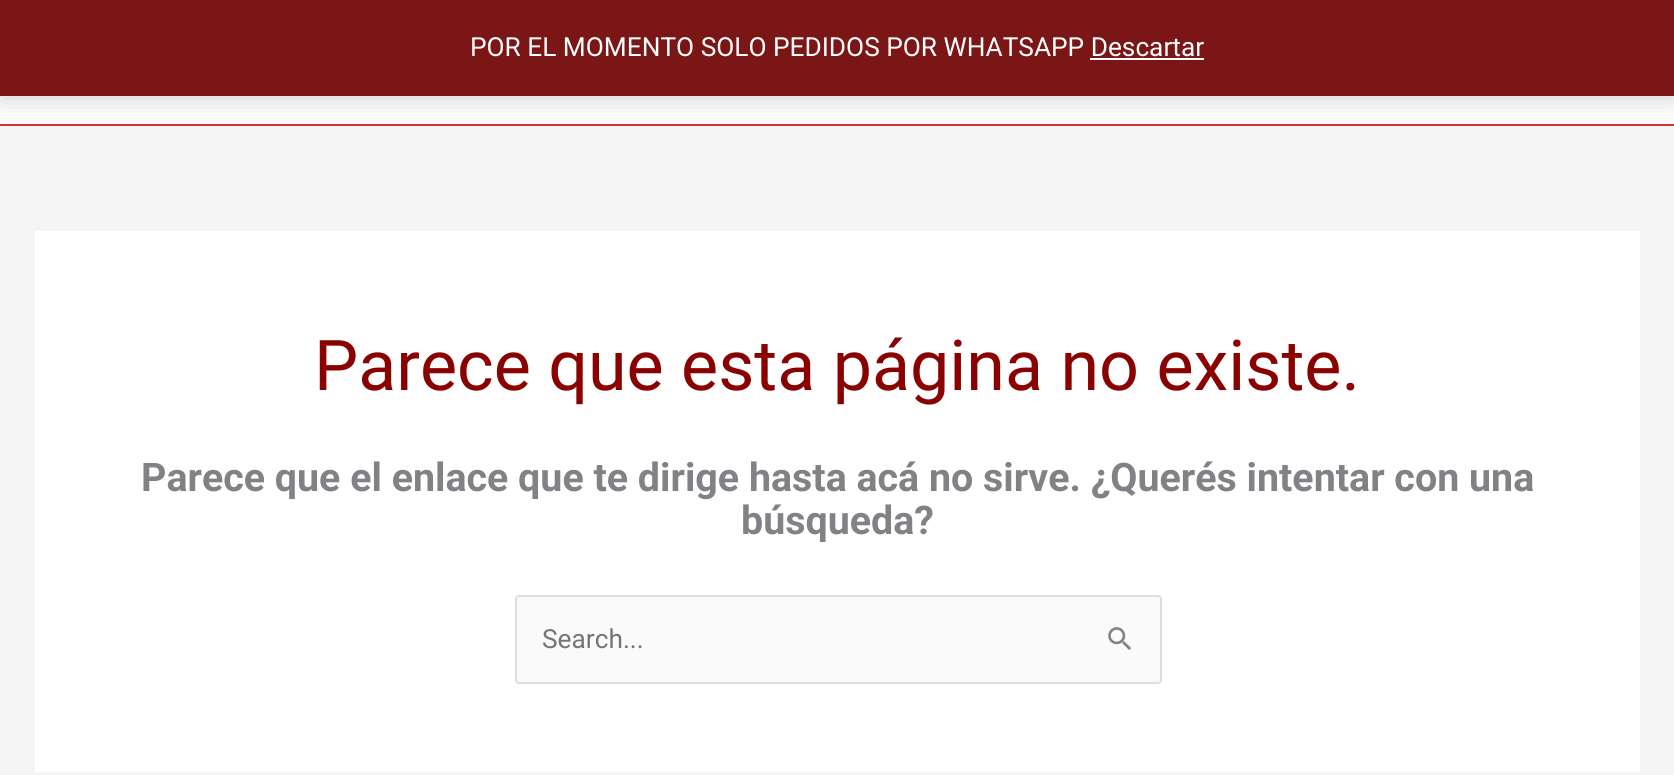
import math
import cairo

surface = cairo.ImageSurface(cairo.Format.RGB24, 1674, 775)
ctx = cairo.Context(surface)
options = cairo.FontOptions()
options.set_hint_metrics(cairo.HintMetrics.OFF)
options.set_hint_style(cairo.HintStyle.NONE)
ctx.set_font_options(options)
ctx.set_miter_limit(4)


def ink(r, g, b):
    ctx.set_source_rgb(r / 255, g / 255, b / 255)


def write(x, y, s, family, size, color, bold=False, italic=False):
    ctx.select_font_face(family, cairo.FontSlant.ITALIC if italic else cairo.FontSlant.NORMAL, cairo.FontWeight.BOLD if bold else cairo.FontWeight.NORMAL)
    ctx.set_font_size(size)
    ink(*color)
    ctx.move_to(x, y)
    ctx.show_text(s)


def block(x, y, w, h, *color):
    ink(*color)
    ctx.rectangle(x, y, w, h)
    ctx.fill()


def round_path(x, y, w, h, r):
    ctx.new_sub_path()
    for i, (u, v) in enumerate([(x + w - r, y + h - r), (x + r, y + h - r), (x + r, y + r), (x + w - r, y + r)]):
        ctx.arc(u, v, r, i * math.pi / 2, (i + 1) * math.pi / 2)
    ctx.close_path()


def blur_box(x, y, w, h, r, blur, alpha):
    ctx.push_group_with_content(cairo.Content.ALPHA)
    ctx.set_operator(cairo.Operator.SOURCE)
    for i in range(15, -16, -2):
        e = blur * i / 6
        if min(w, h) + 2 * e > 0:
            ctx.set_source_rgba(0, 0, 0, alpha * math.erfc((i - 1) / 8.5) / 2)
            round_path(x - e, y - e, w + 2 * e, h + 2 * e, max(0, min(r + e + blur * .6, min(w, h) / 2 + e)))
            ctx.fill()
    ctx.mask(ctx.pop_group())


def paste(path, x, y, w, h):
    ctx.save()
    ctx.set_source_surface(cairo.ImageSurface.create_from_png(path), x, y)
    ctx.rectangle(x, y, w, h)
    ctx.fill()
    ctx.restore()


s1 = dict(family="Roboto", size=26.25, color=(255, 255, 255))
s2 = dict(family="Roboto", size=70, color=(137, 1, 1))
s3 = dict(family="Roboto", size=39.4, color=(128, 130, 133), bold=True)
s4 = dict(family="Roboto", size=26.25, color=(117, 117, 117))

ink(245, 245, 245)
ctx.paint()
block(0, 96, 1674, 28, 255, 255, 255)
block(0, 124, 1674, 2, 220, 50, 50)
ink(0, 0, 0)
blur_box(0, 2, 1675, 96, 0, 13, 0.2)
block(0, 0, 1674, 96, 123, 22, 22)
write(470, 56, "POR EL MOMENTO SOLO PEDIDOS POR WHATSAPP Descartar", **s1)
block(1090, 58, 114, 2, 255, 255, 255)
block(35, 231, 1605, 541, 255, 255, 255)
write(314, 390, "Parece que esta página no existe.", **s2)
write(141, 491, "Parece que el enlace que te dirige hasta acá no sirve. ¿Querés intentar con una", **s3)
write(741, 534, "búsqueda?", **s3)
ink(250, 250, 250)
round_path(516, 596, 645, 87, 3)
ctx.fill_preserve()
ink(221, 221, 221)
ctx.stroke()
write(542, 648, "Search...", **s4)
paste("pic1.png", 1108, 627, 23, 23)
surface.write_to_png("screenshot.png")
